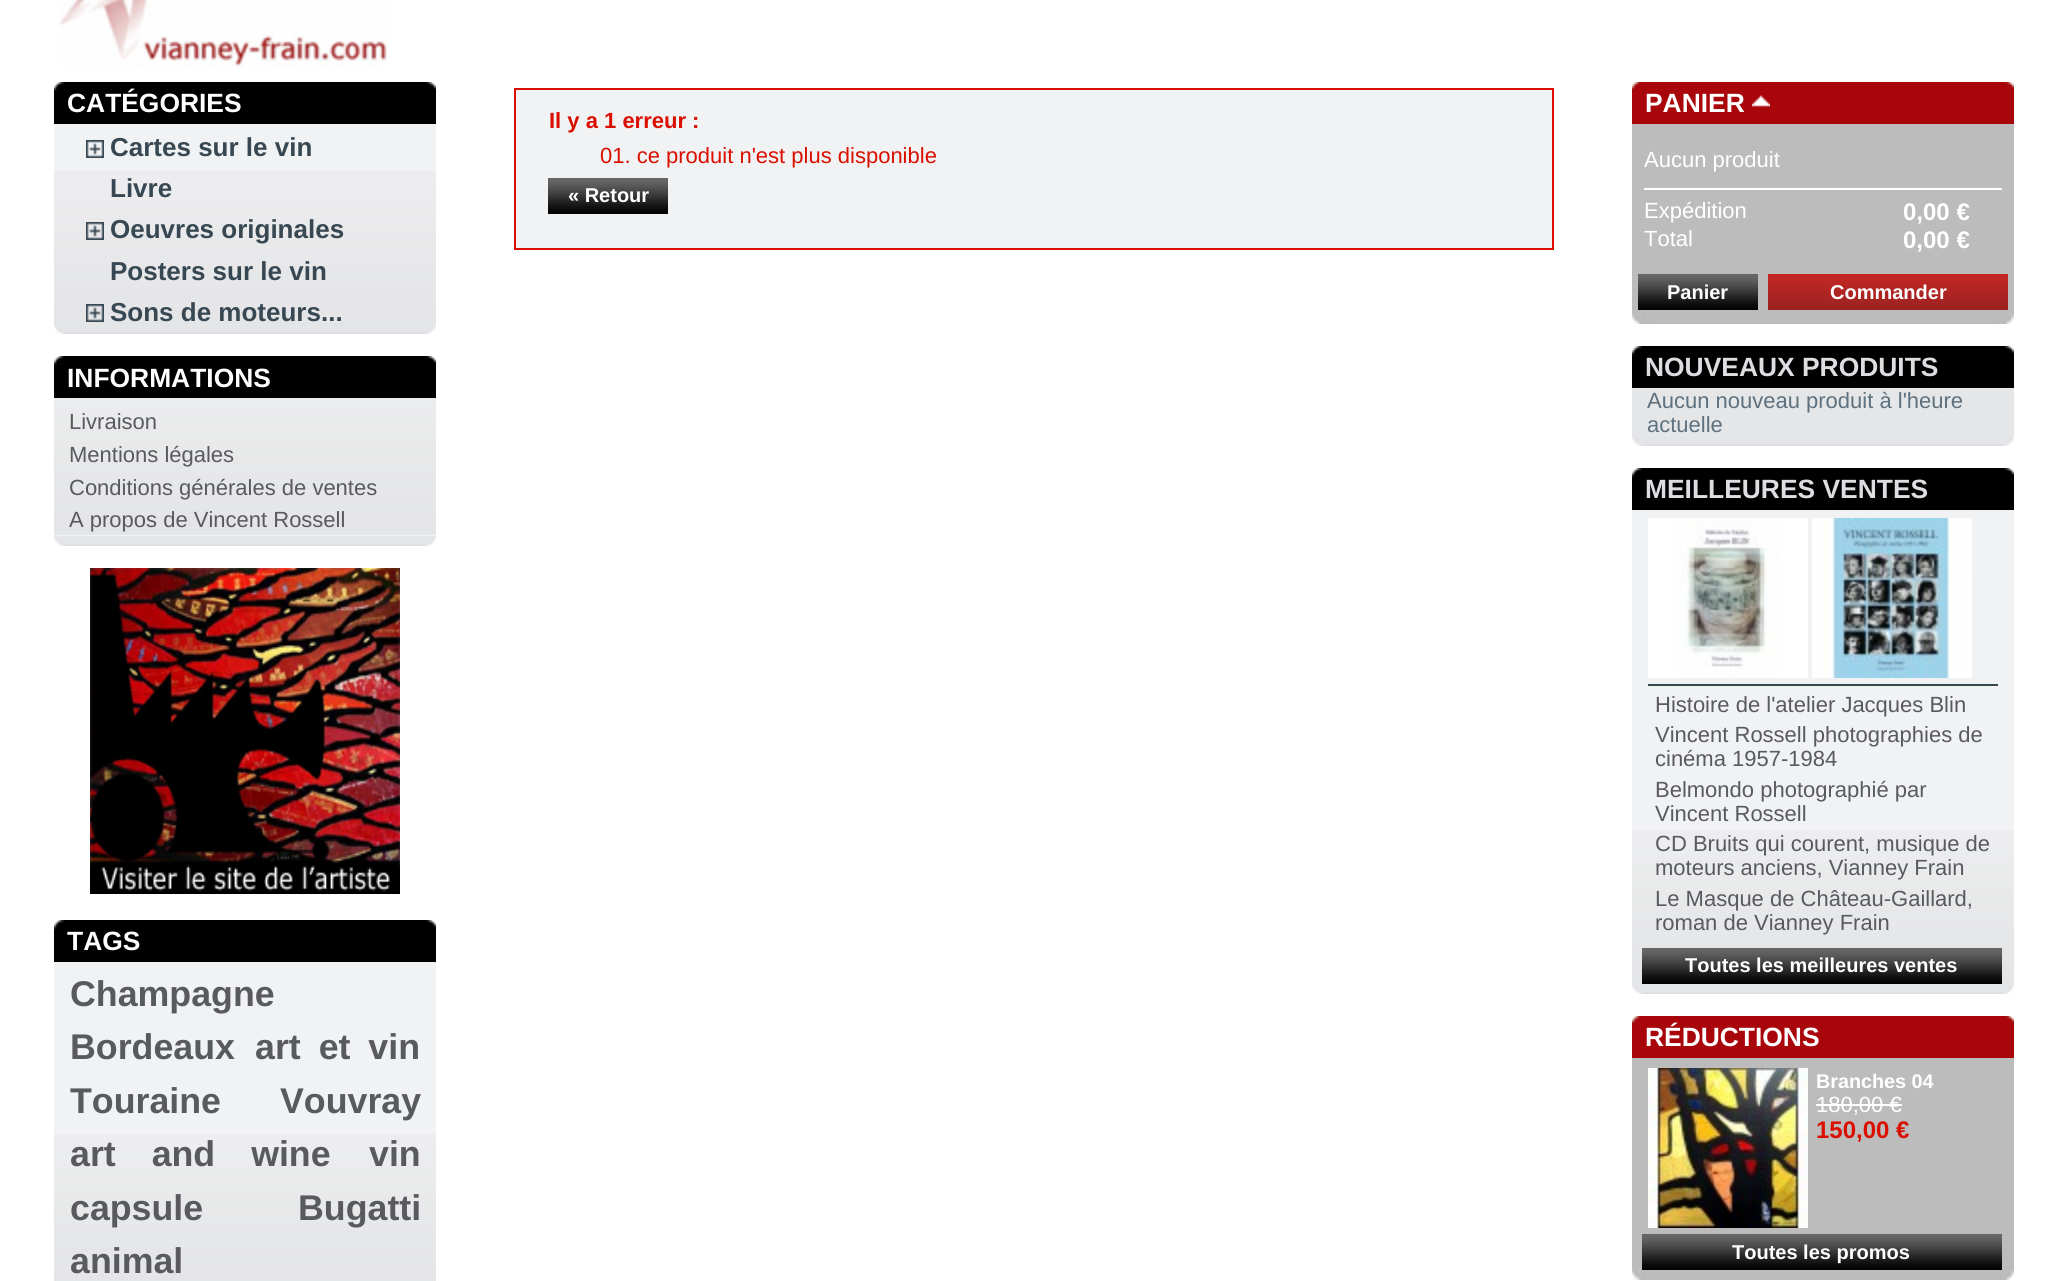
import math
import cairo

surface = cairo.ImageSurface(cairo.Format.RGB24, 2067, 1281)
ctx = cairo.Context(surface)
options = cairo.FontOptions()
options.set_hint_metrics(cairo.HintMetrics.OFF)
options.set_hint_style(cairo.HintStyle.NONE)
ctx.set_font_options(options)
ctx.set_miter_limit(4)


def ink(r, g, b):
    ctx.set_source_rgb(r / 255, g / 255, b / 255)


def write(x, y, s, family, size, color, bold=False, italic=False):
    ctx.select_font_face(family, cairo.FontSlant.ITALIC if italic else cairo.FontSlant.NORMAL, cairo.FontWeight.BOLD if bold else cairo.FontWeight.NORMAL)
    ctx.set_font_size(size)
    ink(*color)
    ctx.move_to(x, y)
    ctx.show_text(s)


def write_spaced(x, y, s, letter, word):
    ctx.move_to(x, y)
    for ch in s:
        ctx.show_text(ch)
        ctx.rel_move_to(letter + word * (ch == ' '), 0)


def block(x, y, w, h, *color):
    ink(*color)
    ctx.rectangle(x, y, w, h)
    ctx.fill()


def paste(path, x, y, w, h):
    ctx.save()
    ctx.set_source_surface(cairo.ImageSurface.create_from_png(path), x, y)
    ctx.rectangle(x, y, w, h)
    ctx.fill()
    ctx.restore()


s1 = dict(family="Liberation Sans", size=26.4, color=(255, 255, 255), bold=True)
s2 = dict(family="Liberation Sans", size=26, color=(55, 72, 83), bold=True)
s3 = dict(family="Liberation Sans", size=22, color=(89, 90, 94))
s4 = dict(family="Liberation Sans", size=35.75, color=(89, 90, 94), bold=True)
s5 = dict(family="Liberation Sans", size=22, color=(218, 15, 0), bold=True)
s6 = dict(family="Liberation Sans", size=22, color=(218, 15, 0))
s7 = dict(family="Liberation Sans", size=20, color=(255, 255, 255), bold=True)
s8 = dict(family="Liberation Sans", size=22, color=(255, 255, 255))
s9 = dict(family="Liberation Sans", size=24, color=(255, 255, 255), bold=True)
s10 = dict(family="Liberation Sans", size=26.4, color=(221, 222, 226), bold=True)
s11 = dict(family="Liberation Sans", size=22, color=(93, 113, 126))
s12 = dict(family="Liberation Sans", size=19.75, color=(255, 255, 255), bold=True)
s13 = dict(family="Liberation Sans", size=24, color=(218, 15, 0), bold=True)

ink(255, 255, 255)
ctx.paint()
paste("pic1.png", 59, 0, 328, 67)
paste("pic2.png", 54, 324, 382, 10)
paste("pic3.png", 54, 82, 382, 42)
write(67, 112, "CATÉGORIES", **s1)
block(54, 124, 382, 47, 241, 242, 244)
paste("pic4.png", 54, 171, 382, 153)
paste("pic5.png", 86, 140, 18, 18)
write(110, 156, "Cartes sur le vin", **s2)
write(110, 197, "Livre", **s2)
paste("pic6.png", 86, 222, 18, 18)
write(110, 238, "Oeuvres originales", **s2)
write(110, 280, "Posters sur le vin", **s2)
paste("pic7.png", 86, 304, 18, 18)
write(110, 321, "Sons de moteurs...", **s2)
paste("pic2.png", 54, 536, 382, 10)
paste("pic3.png", 54, 356, 382, 42)
write(67, 387, "INFORMATIONS", **s1)
block(54, 535, 382, 1, 241, 242, 244)
paste("pic8.png", 54, 398, 382, 137)
write(69, 429, "Livraison", **s3)
write(69, 462, "Mentions légales", **s3)
write(69, 495, "Conditions générales de ventes", **s3)
write(69, 527, "A propos de Vincent Rossell", **s3)
paste("pic9.png", 90, 568, 310, 326)
paste("pic3.png", 54, 920, 382, 42)
write(67, 950, "TAGS", **s1)
block(54, 962, 382, 172, 241, 242, 244)
paste("pic10.png", 54, 1134, 382, 147)
write(70, 1006, "Champagne", **s4)
write(70, 1059, "Bordeaux", **s4)
write_spaced(255, 1059, "art et vin", 0, 8)
write(70, 1113, "Touraine", **s4)
write(280, 1113, "Vouvray", **s4)
write_spaced(70, 1166, "art and wine", 0, 26)
write(369, 1166, "vin", **s4)
write(70, 1220, "capsule", **s4)
write(298, 1220, "Bugatti", **s4)
write(70, 1273, "animal", **s4)
ink(241, 242, 244)
ctx.rectangle(515, 89, 1038, 160)
ctx.fill_preserve()
ink(218, 15, 0)
ctx.stroke()
write(549, 128, "Il y a 1 erreur :", **s5)
write(600, 163, "01. ce produit n'est plus disponible", **s6)
paste("pic11.png", 548, 178, 120, 36)
write(568, 202, "« Retour", **s7)
paste("pic12.png", 1632, 314, 382, 10)
paste("pic13.png", 1632, 82, 382, 42)
write(1645, 112, "PANIER", **s1)
paste("pic14.png", 1752, 95, 18, 12)
block(1632, 124, 382, 190, 188, 188, 188)
write(1644, 167, "Aucun produit", **s8)
block(1644, 188, 358, 2, 255, 255, 255)
write(1644, 218, "Expédition", **s8)
write(1903, 220, "0,00 €", **s9)
write(1644, 246, "Total", **s8)
write(1903, 248, "0,00 €", **s9)
paste("pic11.png", 1638, 274, 120, 36)
write(1667, 299, "Panier", **s7)
paste("pic15.png", 1768, 274, 240, 36)
write(1830, 299, "Commander", **s7)
paste("pic2.png", 1632, 436, 382, 10)
paste("pic3.png", 1632, 346, 382, 42)
write(1645, 376, "NOUVEAUX PRODUITS", **s10)
block(1632, 388, 382, 48, 229, 230, 232)
write(1647, 408, "Aucun nouveau produit à l'heure", **s11)
write(1647, 432, "actuelle", **s11)
paste("pic2.png", 1632, 984, 382, 10)
paste("pic3.png", 1632, 468, 382, 42)
write(1645, 498, "MEILLEURES VENTES", **s10)
block(1632, 510, 382, 320, 241, 242, 244)
paste("pic16.png", 1632, 830, 382, 154)
paste("pic17.png", 1648, 518, 160, 160)
paste("pic18.png", 1812, 518, 160, 160)
block(1648, 684, 350, 2, 55, 72, 83)
write(1655, 712, "Histoire de l'atelier Jacques Blin", **s3)
write(1655, 742, "Vincent Rossell photographies de", **s3)
write(1655, 766, "cinéma 1957-1984", **s3)
write(1655, 797, "Belmondo photographié par", **s3)
write(1655, 821, "Vincent Rossell", **s3)
write(1655, 851, "CD Bruits qui courent, musique de", **s3)
write(1655, 875, "moteurs anciens, Vianney Frain", **s3)
write(1655, 906, "Le Masque de Château-Gaillard,", **s3)
write(1655, 930, "roman de Vianney Frain", **s3)
paste("pic19.png", 1642, 948, 360, 36)
write(1685, 972, "Toutes les meilleures ventes", **s7)
paste("pic12.png", 1632, 1270, 382, 10)
paste("pic13.png", 1632, 1016, 382, 42)
write(1645, 1046, "RÉDUCTIONS", **s1)
block(1632, 1058, 382, 212, 188, 188, 188)
paste("pic20.png", 1648, 1068, 160, 160)
write(1816, 1088, "Branches 04", **s12)
write(1816, 1112, "180,00 €", **s8)
block(1816, 1104, 86, 2, 255, 255, 255)
write(1816, 1138, "150,00 €", **s13)
paste("pic19.png", 1642, 1234, 360, 36)
write(1732, 1259, "Toutes les promos", **s7)
surface.write_to_png("screenshot.png")
